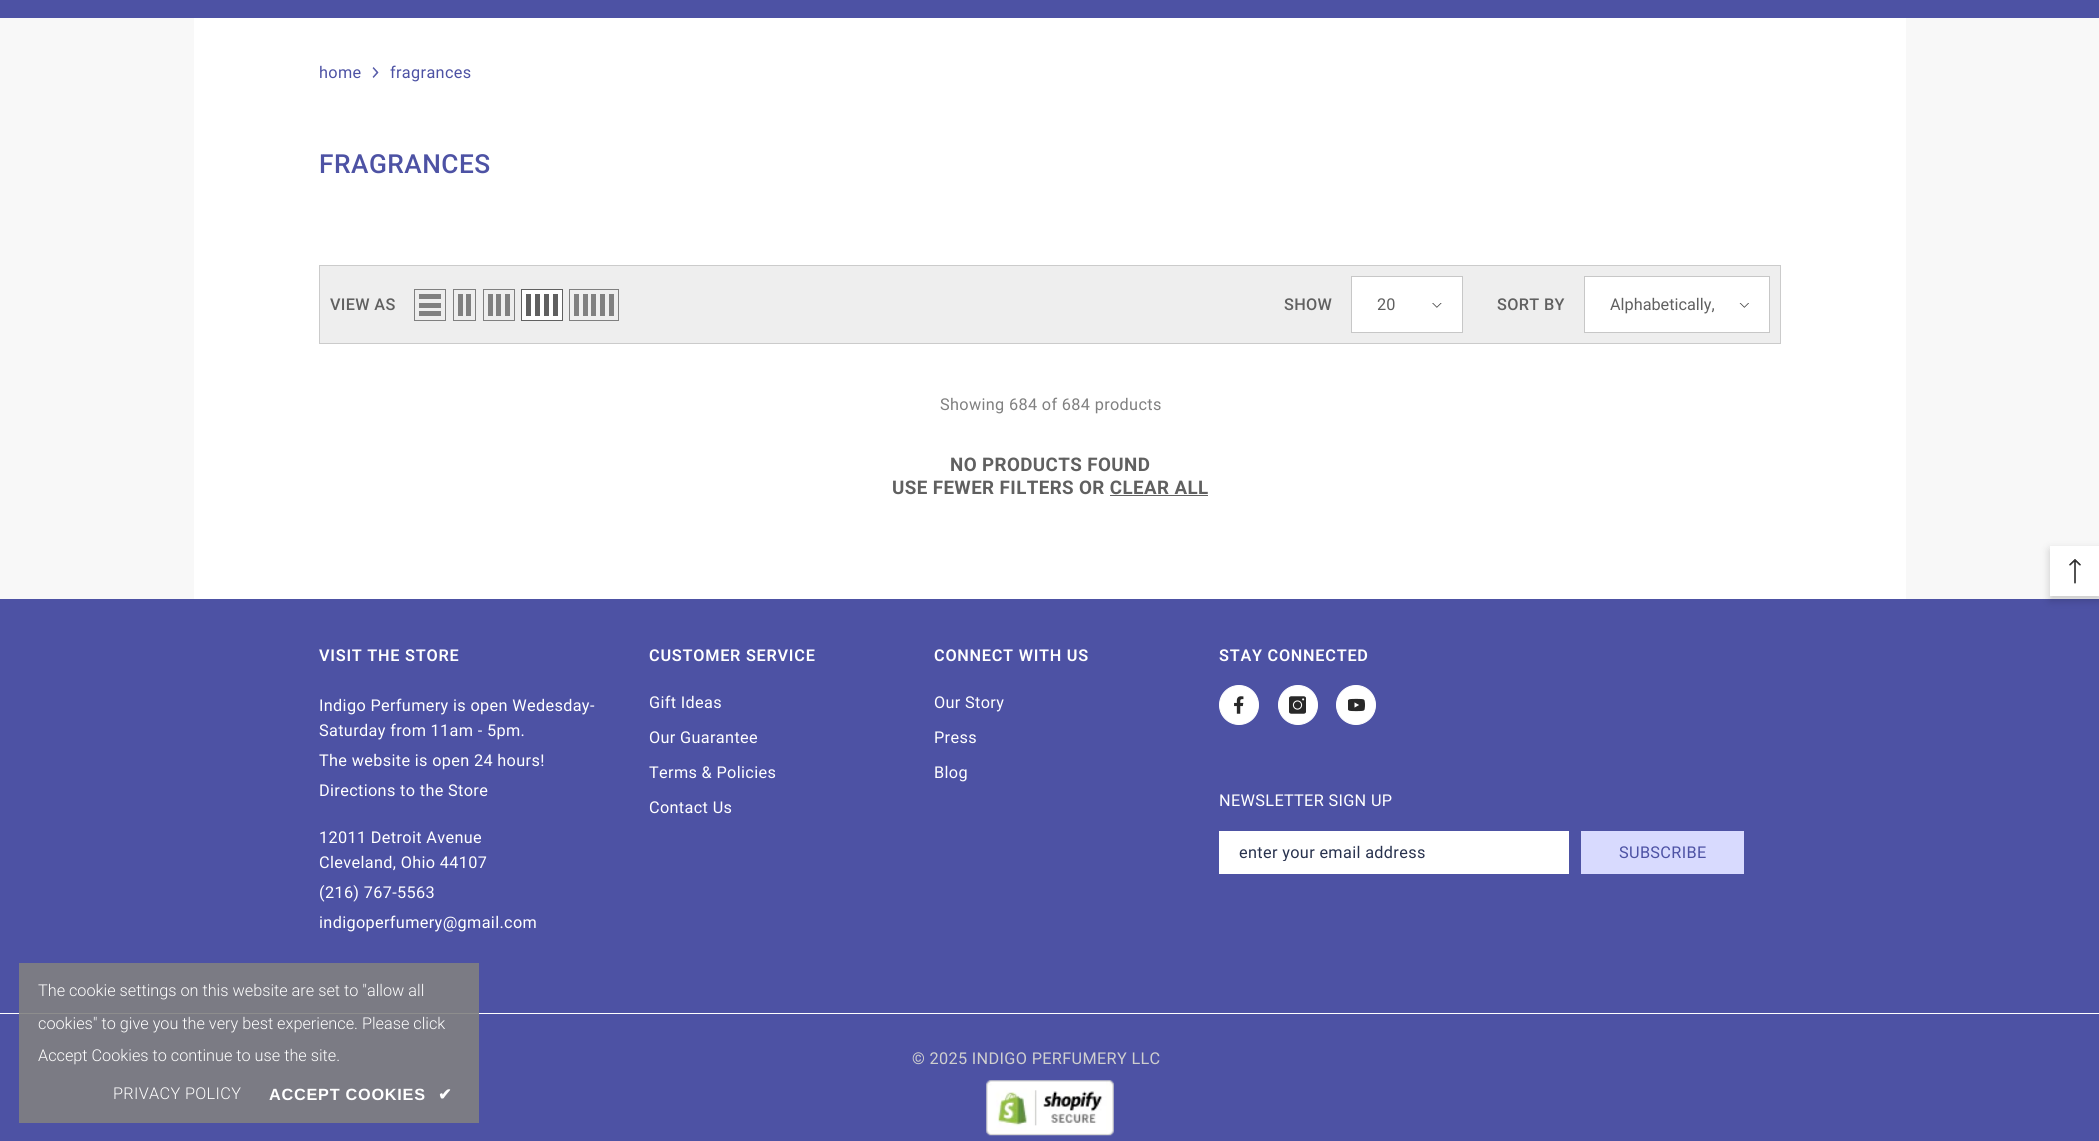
import math
import cairo

surface = cairo.ImageSurface(cairo.Format.RGB24, 2099, 1141)
ctx = cairo.Context(surface)
options = cairo.FontOptions()
options.set_hint_metrics(cairo.HintMetrics.OFF)
options.set_hint_style(cairo.HintStyle.NONE)
ctx.set_font_options(options)
ctx.set_miter_limit(4)


def ink(r, g, b):
    ctx.set_source_rgb(r / 255, g / 255, b / 255)


def write(x, y, s, family, size, color, bold=False, italic=False):
    ctx.select_font_face(family, cairo.FontSlant.ITALIC if italic else cairo.FontSlant.NORMAL, cairo.FontWeight.BOLD if bold else cairo.FontWeight.NORMAL)
    ctx.set_font_size(size)
    ink(*color)
    ctx.move_to(x, y)
    ctx.show_text(s)


def write_spaced(x, y, s, letter, word):
    ctx.move_to(x, y)
    for ch in s:
        ctx.show_text(ch)
        ctx.rel_move_to(letter + word * (ch == ' '), 0)


def block(x, y, w, h, *color):
    ink(*color)
    ctx.rectangle(x, y, w, h)
    ctx.fill()


def round_path(x, y, w, h, r):
    ctx.new_sub_path()
    for i, (u, v) in enumerate([(x + w - r, y + h - r), (x + r, y + h - r), (x + r, y + r), (x + w - r, y + r)]):
        ctx.arc(u, v, r, i * math.pi / 2, (i + 1) * math.pi / 2)
    ctx.close_path()


def blur_box(x, y, w, h, r, blur, alpha):
    ctx.push_group_with_content(cairo.Content.ALPHA)
    ctx.set_operator(cairo.Operator.SOURCE)
    for i in range(15, -16, -2):
        e = blur * i / 6
        if min(w, h) + 2 * e > 0:
            ctx.set_source_rgba(0, 0, 0, alpha * math.erfc((i - 1) / 8.5) / 2)
            round_path(x - e, y - e, w + 2 * e, h + 2 * e, max(0, min(r + e + blur * .6, min(w, h) / 2 + e)))
            ctx.fill()
    ctx.mask(ctx.pop_group())


def paste(path, x, y, w, h):
    ctx.save()
    ctx.set_source_surface(cairo.ImageSurface.create_from_png(path), x, y)
    ctx.rectangle(x, y, w, h)
    ctx.fill()
    ctx.restore()


s1 = dict(family="Roboto", size=16.25, color=(96, 96, 96))
s2 = dict(family="Roboto Light", size=16.25, color=(255, 255, 255))

ink(248, 248, 248)
ctx.paint()
block(0, 0, 2099, 18, 77, 82, 164)
block(194, 18, 1712, 581, 255, 255, 255)
ctx.select_font_face("Roboto")
ctx.set_font_size(16.25)
ink(77, 82, 164)
write_spaced(319, 78, "home", 0.35, 0)
paste("pic1.png", 372, 67, 7, 11)
write_spaced(390, 78, "fragrances", 0.35, 0)
ctx.select_font_face("Roboto Medium")
ctx.set_font_size(26.25)
write_spaced(319, 173, "FRAGRANCES", 0.5, 0)
ink(238, 238, 238)
ctx.rectangle(319.5, 265.5, 1461, 78)
ctx.fill_preserve()
ink(203, 203, 203)
ctx.set_line_width(1)
ctx.stroke()
ctx.set_font_size(16.25)
ink(96, 96, 96)
write_spaced(330, 310, "VIEW AS", 0.35, 0)
ctx.rectangle(414.5, 289.5, 31, 31)
ink(128, 128, 128)
ctx.stroke()
block(419, 311, 22, 5, 128, 128, 128)
block(419, 303, 22, 5, 128, 128, 128)
block(419, 294, 22, 5, 128, 128, 128)
ctx.rectangle(453.5, 289.5, 22, 31)
ctx.stroke()
block(466, 294, 5, 22, 128, 128, 128)
block(458, 294, 5, 22, 128, 128, 128)
ctx.rectangle(483.5, 289.5, 31, 31)
ctx.stroke()
block(505, 294, 5, 22, 128, 128, 128)
block(496, 294, 5, 22, 128, 128, 128)
block(488, 294, 5, 22, 128, 128, 128)
ink(255, 255, 255)
ctx.rectangle(521.5, 289.5, 41, 31)
ctx.fill_preserve()
ink(96, 96, 96)
ctx.stroke()
block(553, 294, 5, 22, 96, 96, 96)
block(544, 294, 5, 22, 96, 96, 96)
block(535, 294, 5, 22, 96, 96, 96)
block(526, 294, 5, 22, 96, 96, 96)
ctx.rectangle(569.5, 289.5, 49, 31)
ink(128, 128, 128)
ctx.stroke()
block(609, 294, 5, 22, 128, 128, 128)
block(600, 294, 5, 22, 128, 128, 128)
block(591, 294, 5, 22, 128, 128, 128)
block(583, 294, 5, 22, 128, 128, 128)
block(574, 294, 5, 22, 128, 128, 128)
ink(96, 96, 96)
write_spaced(1284, 310, "SHOW", 0.35, 0)
ink(255, 255, 255)
ctx.rectangle(1351.5, 276.5, 111, 56)
ctx.fill_preserve()
ink(199, 199, 199)
ctx.stroke()
write(1377, 310, "20", **s1)
paste("pic2.png", 1432, 303, 10, 5)
ctx.select_font_face("Roboto Medium")
write_spaced(1497, 310, "SORT BY", 0.35, 0)
ink(255, 255, 255)
ctx.rectangle(1584.5, 276.5, 185, 56)
ctx.fill_preserve()
ink(199, 199, 199)
ctx.stroke()
write(1610, 310, "Alphabetically,", **s1)
paste("pic3.png", 1739, 303, 10, 5)
ink(128, 128, 128)
write_spaced(940, 410, "Showing 684 of 684 products", 0.35, 0)
ctx.select_font_face("Roboto", cairo.FontSlant.NORMAL, cairo.FontWeight.BOLD)
ctx.set_font_size(18.75)
ink(96, 96, 96)
write_spaced(950, 471, "NO PRODUCTS FOUND", 0.4, 0)
write_spaced(892, 494, "USE FEWER FILTERS OR CLEAR ALL", 0.4, 0)
block(1110, 495, 98, 1, 96, 96, 96)
block(0, 599, 2099, 414, 77, 82, 164)
block(19, 963, 460, 50, 123, 123, 132)
ctx.select_font_face("Roboto SemiBold")
ctx.set_font_size(16.25)
ink(255, 255, 255)
write_spaced(319, 661, "VISIT THE STORE", 0.75, 0)
ctx.select_font_face("Roboto")
write_spaced(319, 711, "Indigo Perfumery is open Wedesday-", 0.35, 0)
write_spaced(319, 736, "Saturday from 11am - 5pm.", 0.35, 0)
write_spaced(319, 766, "The website is open 24 hours!", 0.35, 0)
write_spaced(319, 796, "Directions to the Store", 0.35, 0)
write_spaced(319, 843, "12011 Detroit Avenue", 0.35, 0)
write_spaced(319, 868, "Cleveland, Ohio 44107", 0.35, 0)
write_spaced(319, 898, "(216) 767-5563", 0.35, 0)
write_spaced(319, 928, "indigoperfumery@gmail.com", 0.35, 0)
ctx.select_font_face("Roboto SemiBold")
write_spaced(649, 661, "CUSTOMER SERVICE", 0.75, 0)
ctx.select_font_face("Roboto")
write_spaced(649, 708, "Gift Ideas", 0.35, 0)
write_spaced(649, 743, "Our Guarantee", 0.35, 0)
write_spaced(649, 778, "Terms & Policies", 0.35, 0)
write_spaced(649, 813, "Contact Us", 0.35, 0)
ctx.select_font_face("Roboto SemiBold")
write_spaced(934, 661, "CONNECT WITH US", 0.75, 0)
ctx.select_font_face("Roboto")
write_spaced(934, 708, "Our Story", 0.35, 0)
write_spaced(934, 743, "Press", 0.35, 0)
write_spaced(934, 778, "Blog", 0.35, 0)
ctx.select_font_face("Roboto SemiBold")
write_spaced(1219, 661, "STAY CONNECTED", 0.75, 0)
ctx.new_path()
ctx.arc(1239, 705, 19.5, 0, 2 * math.pi)
ctx.fill_preserve()
ctx.stroke()
paste("pic4.png", 1234, 696, 10, 18)
ctx.arc(1298, 705, 19.5, 0, 2 * math.pi)
ctx.fill_preserve()
ctx.stroke()
paste("pic5.png", 1289, 696, 17, 18)
ctx.arc(1356, 705, 19.5, 0, 2 * math.pi)
ctx.fill_preserve()
ctx.stroke()
paste("pic6.png", 1348, 698, 17, 14)
ctx.select_font_face("Roboto")
write_spaced(1219, 806, "NEWSLETTER SIGN UP", 0.35, 0)
block(1219, 831, 350, 43, 255, 255, 255)
ctx.save()
ctx.rectangle(1239, 843, 310, 18)
ctx.clip()
ink(40, 50, 78)
write_spaced(1239, 858, "enter your email address", 0.35, 0)
ctx.restore()
block(1581, 831, 163, 43, 216, 218, 254)
ink(77, 82, 164)
write_spaced(1619, 858, "SUBSCRIBE", 0.35, 0)
block(0, 1014, 2099, 127, 77, 82, 164)
block(19, 1014, 460, 109, 123, 123, 132)
block(0, 1013, 2099, 1, 255, 255, 255)
block(19, 1013, 460, 1, 141, 141, 141)
ink(207, 207, 207)
write_spaced(912, 1064, "© 2025 INDIGO PERFUMERY LLC", 0.35, 0)
paste("pic7.png", 986, 1080, 128, 56)
ink(0, 0, 0)
blur_box(2050, 550, 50, 50, 0, 4.5, 0.2)
block(2050, 546, 49, 50, 255, 255, 255)
paste("pic8.png", 2069, 559, 12, 25)
write(38, 996, "The cookie settings on this website are set to \"allow all", **s2)
write(38, 1029, "cookies\" to give you the very best experience. Please click", **s2)
write(38, 1061, "Accept Cookies to continue to use the site.", **s2)
write_spaced(113, 1099, "PRIVACY POLICY", 0.35, 0)
ctx.select_font_face("Liberation Sans", cairo.FontSlant.NORMAL, cairo.FontWeight.BOLD)
write_spaced(269, 1100, "ACCEPT COOKIES", 0.75, 0)
ctx.select_font_face("DejaVu Sans", cairo.FontSlant.NORMAL, cairo.FontWeight.BOLD)
write_spaced(438, 1100, "✔", 0.75, 0)
surface.write_to_png("screenshot.png")
